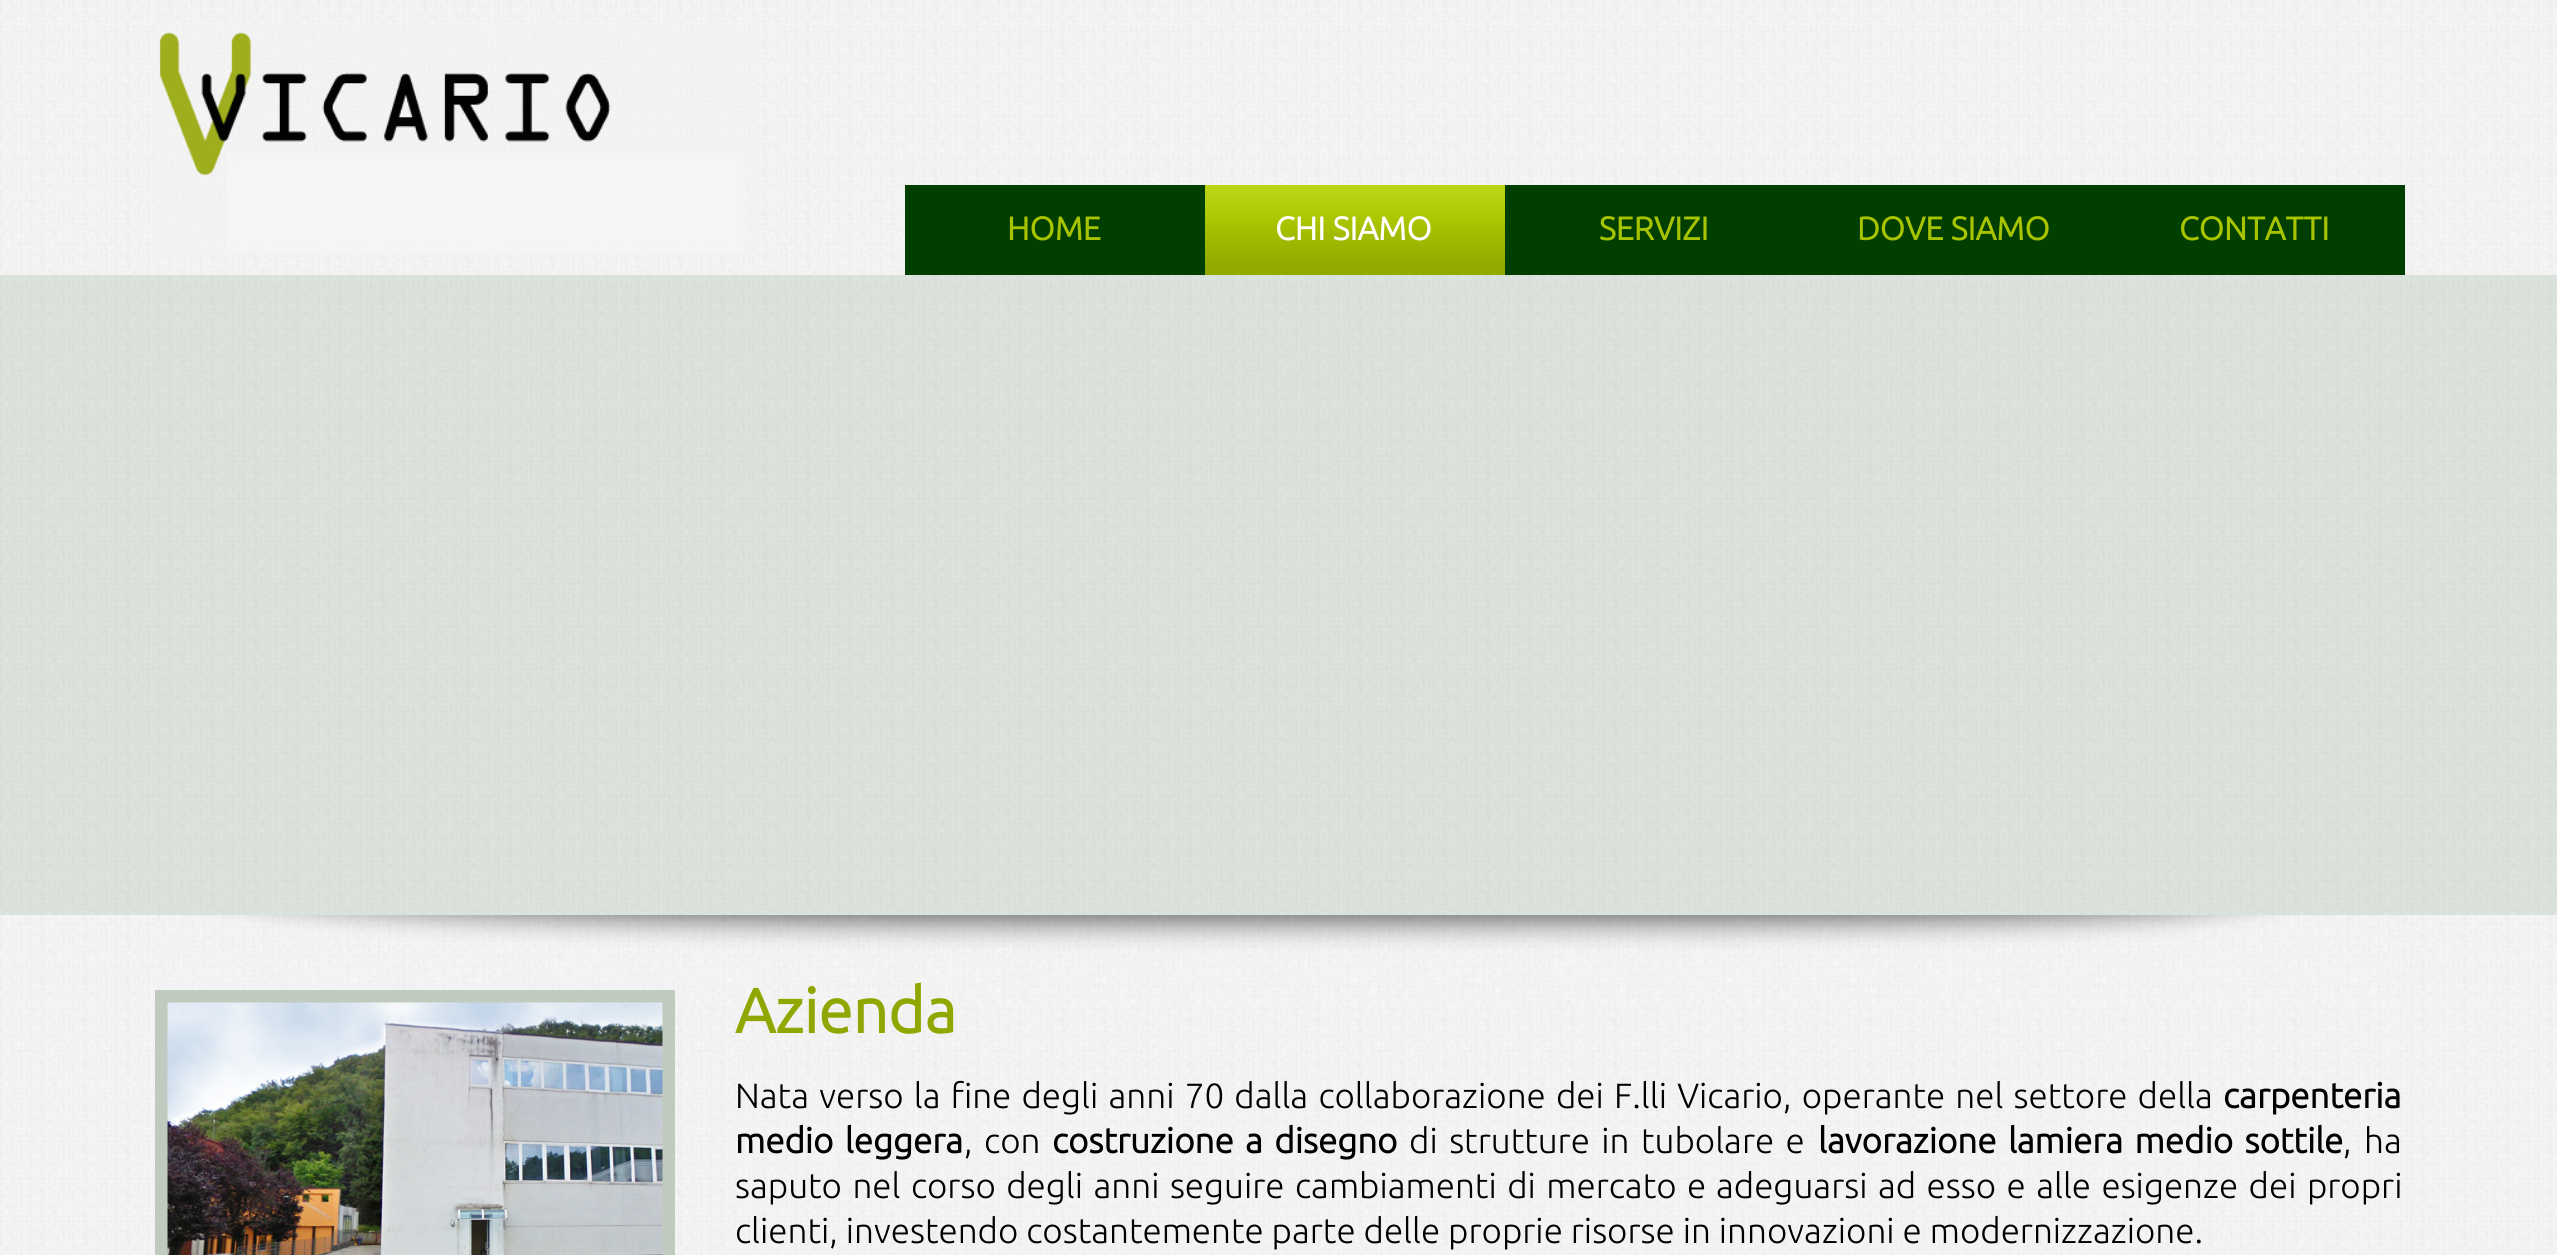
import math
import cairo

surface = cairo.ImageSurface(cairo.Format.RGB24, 2557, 1255)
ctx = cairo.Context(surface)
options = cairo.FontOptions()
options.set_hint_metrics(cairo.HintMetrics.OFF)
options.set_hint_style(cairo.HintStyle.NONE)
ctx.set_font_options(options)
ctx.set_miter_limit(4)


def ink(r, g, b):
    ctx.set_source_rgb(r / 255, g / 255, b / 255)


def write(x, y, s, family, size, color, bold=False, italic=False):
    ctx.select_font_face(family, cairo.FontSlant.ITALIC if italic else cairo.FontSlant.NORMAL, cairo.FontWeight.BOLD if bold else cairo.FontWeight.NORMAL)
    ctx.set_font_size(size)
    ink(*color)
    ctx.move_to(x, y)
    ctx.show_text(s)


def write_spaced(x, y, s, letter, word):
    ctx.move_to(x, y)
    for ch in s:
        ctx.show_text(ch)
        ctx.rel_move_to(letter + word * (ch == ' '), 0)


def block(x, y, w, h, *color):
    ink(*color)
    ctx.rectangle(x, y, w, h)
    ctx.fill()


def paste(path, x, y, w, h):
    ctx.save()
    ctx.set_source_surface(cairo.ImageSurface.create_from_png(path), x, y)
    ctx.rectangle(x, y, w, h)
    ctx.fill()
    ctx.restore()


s1 = dict(family="Ubuntu", size=32.5, color=(168, 196, 0), bold=True)
s2 = dict(family="Ubuntu", size=32.5, color=(255, 255, 255), bold=True)
s3 = dict(family="Ubuntu", size=62.5, color=(143, 167, 0), bold=True)
s4 = dict(family="Ubuntu", size=35, color=(0, 0, 0), bold=True)
s5 = dict(family="Ubuntu Light", size=35, color=(0, 0, 0))

ink(255, 255, 255)
ctx.paint()
paste("pic1.png", 0, 0, 2557, 1255)
paste("pic2.png", 155, 25, 600, 230)
block(905, 185, 1500, 90, 0, 63, 0)
write(1007, 240, "HOME", **s1)
paste("pic3.png", 1205, 185, 300, 90)
write(1275, 240, "CHI SIAMO", **s2)
write(1599, 240, "SERVIZI", **s1)
write(1857, 240, "DOVE SIAMO", **s1)
write(2179, 240, "CONTATTI", **s1)
ctx.set_source_rgba(0, 0.247, 0, 0.1)
ctx.rectangle(0, 275, 2557, 640)
ctx.fill()
paste("pic4.png", 157, 915, 2248, 90)
ctx.rectangle(161.5, 996.5, 507, 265)
ink(192, 203, 192)
ctx.set_line_width(13)
ctx.stroke()
paste("pic5.png", 167, 1002, 496, 253)
write(735, 1033, "Azienda", **s3)
ctx.select_font_face("Ubuntu Light")
ctx.set_font_size(35)
ink(0, 0, 0)
write_spaced(735, 1108, "Nata verso la fine degli anni 70 dalla collaborazione dei F.lli Vicario, operante nel settore della", 0, 2.25)
write(2223, 1108, "carpenteria", **s4)
write_spaced(735, 1153, "medio leggera", 0, 3.5)
ctx.select_font_face("Ubuntu Light")
write_spaced(964, 1153, ", con", 0, 3.5)
ctx.select_font_face("Ubuntu", cairo.FontSlant.NORMAL, cairo.FontWeight.BOLD)
write_spaced(1052, 1153, "costruzione a disegno", 0, 3.5)
ctx.select_font_face("Ubuntu Light")
write_spaced(1409, 1153, "di strutture in tubolare e", 0, 3.5)
ctx.select_font_face("Ubuntu", cairo.FontSlant.NORMAL, cairo.FontWeight.BOLD)
write_spaced(1818, 1153, "lavorazione lamiera medio sottile", 0, 3.5)
write(2343, 1153, ",", **s5)
write(2364, 1153, "ha", **s5)
write_spaced(735, 1198, "saputo nel corso degli anni seguire cambiamenti di mercato e", 0, 2.5)
write_spaced(1716, 1198, "adeguarsi ad esso e alle esigenze dei propri", 0, 2.5)
write(735, 1243, "clienti, investendo costantemente parte delle proprie risorse in innovazioni e modernizzazione.", **s5)
surface.write_to_png("screenshot.png")
